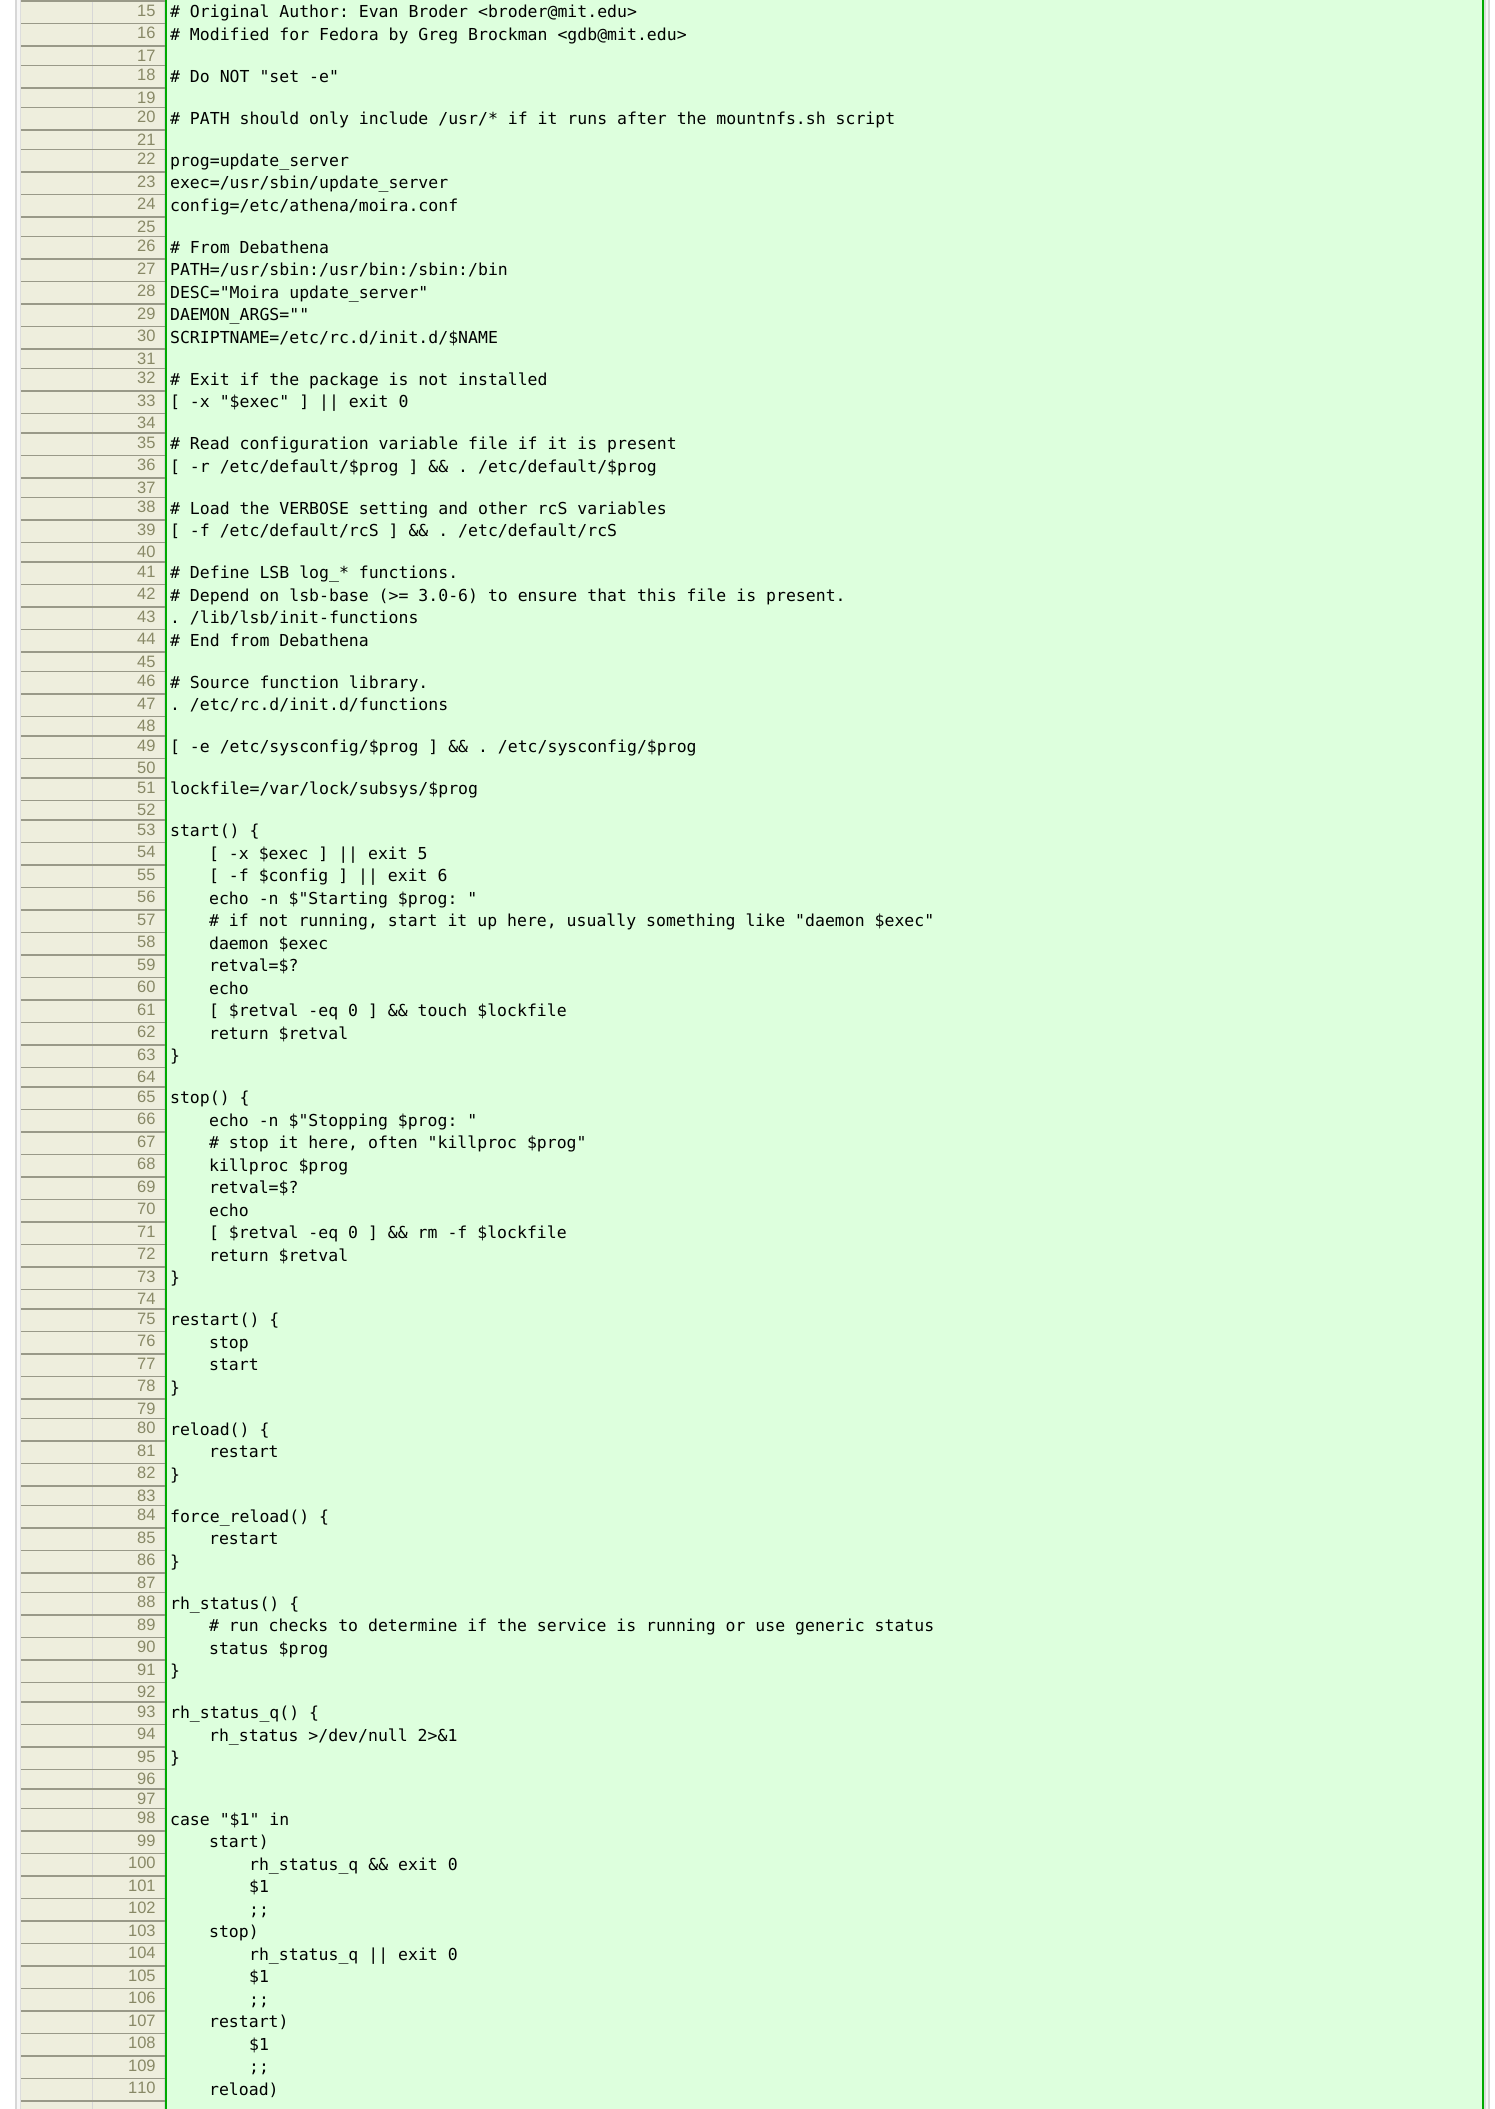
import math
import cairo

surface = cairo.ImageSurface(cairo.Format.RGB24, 1495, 2109)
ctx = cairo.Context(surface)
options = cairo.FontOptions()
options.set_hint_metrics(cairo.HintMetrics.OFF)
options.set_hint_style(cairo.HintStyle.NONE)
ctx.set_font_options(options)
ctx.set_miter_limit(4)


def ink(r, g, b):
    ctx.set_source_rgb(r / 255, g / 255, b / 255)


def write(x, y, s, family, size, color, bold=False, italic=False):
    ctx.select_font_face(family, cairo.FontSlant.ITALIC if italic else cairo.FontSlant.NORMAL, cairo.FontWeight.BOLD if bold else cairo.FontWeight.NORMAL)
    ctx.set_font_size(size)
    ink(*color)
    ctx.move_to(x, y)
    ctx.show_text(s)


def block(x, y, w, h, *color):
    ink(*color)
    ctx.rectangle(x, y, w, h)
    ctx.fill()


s1 = dict(family="Liberation Sans", size=16.5, color=(136, 136, 102))
s2 = dict(family="DejaVu Sans Mono", size=16.5, color=(0, 0, 0))

ink(255, 255, 255)
ctx.paint()
ink(247, 247, 247)
ctx.rectangle(16, -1, 1473, 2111)
ctx.fill_preserve()
ink(215, 215, 215)
ctx.stroke()
block(1484, 0, 2, 2109, 221, 221, 221)
block(20, 0, 1, 2109, 221, 221, 221)
block(21, 0, 144, 2, 153, 153, 136)
block(167, 0, 1315, 1400, 221, 255, 221)
block(1482, 0, 2, 1400, 0, 170, 0)
block(165, 0, 2, 1400, 0, 170, 0)
block(21, 2, 71, 21, 238, 238, 221)
block(92, 2, 1, 1417, 215, 215, 215)
block(21, 23, 72, 1, 153, 153, 136)
block(93, 2, 71, 21, 238, 238, 221)
block(164, 2, 1, 1417, 215, 215, 215)
block(93, 23, 72, 1, 153, 153, 136)
write(137, 16, "15", **s1)
write(170, 17, "# Original Author: Evan Broder <broder@mit.edu>", **s2)
block(21, 24, 71, 21, 238, 238, 221)
block(21, 45, 144, 2, 153, 153, 136)
block(93, 24, 71, 21, 238, 238, 221)
write(137, 38, "16", **s1)
write(170, 40, "# Modified for Fedora by Greg Brockman <gdb@mit.edu>", **s2)
block(21, 47, 71, 18, 238, 238, 221)
block(21, 65, 144, 1, 153, 153, 136)
block(93, 47, 71, 18, 238, 238, 221)
write(137, 61, "17", **s1)
block(21, 66, 71, 21, 238, 238, 221)
block(21, 87, 144, 2, 153, 153, 136)
block(93, 66, 71, 21, 238, 238, 221)
write(137, 80, "18", **s1)
write(170, 82, "# Do NOT \"set -e\"", **s2)
block(21, 89, 71, 18, 238, 238, 221)
block(21, 107, 144, 1, 153, 153, 136)
block(93, 89, 71, 18, 238, 238, 221)
write(137, 103, "19", **s1)
block(21, 108, 71, 21, 238, 238, 221)
block(21, 129, 144, 2, 153, 153, 136)
block(93, 108, 71, 21, 238, 238, 221)
write(137, 122, "20", **s1)
write(170, 124, "# PATH should only include /usr/* if it runs after the mountnfs.sh script", **s2)
block(21, 131, 71, 18, 238, 238, 221)
block(21, 149, 144, 1, 153, 153, 136)
block(93, 131, 71, 18, 238, 238, 221)
write(137, 145, "21", **s1)
block(21, 150, 71, 21, 238, 238, 221)
block(21, 171, 144, 2, 153, 153, 136)
block(93, 150, 71, 21, 238, 238, 221)
write(137, 164, "22", **s1)
write(170, 166, "prog=update_server", **s2)
block(21, 173, 71, 21, 238, 238, 221)
block(21, 194, 144, 1, 153, 153, 136)
block(93, 173, 71, 21, 238, 238, 221)
write(137, 187, "23", **s1)
write(170, 188, "exec=/usr/sbin/update_server", **s2)
block(21, 195, 71, 21, 238, 238, 221)
block(21, 216, 144, 2, 153, 153, 136)
block(93, 195, 71, 21, 238, 238, 221)
write(137, 209, "24", **s1)
write(170, 211, "config=/etc/athena/moira.conf", **s2)
block(21, 218, 71, 18, 238, 238, 221)
block(21, 236, 144, 1, 153, 153, 136)
block(93, 218, 71, 18, 238, 238, 221)
write(137, 232, "25", **s1)
block(21, 237, 71, 21, 238, 238, 221)
block(21, 258, 144, 2, 153, 153, 136)
block(93, 237, 71, 21, 238, 238, 221)
write(137, 251, "26", **s1)
write(170, 253, "# From Debathena", **s2)
block(21, 260, 71, 21, 238, 238, 221)
block(21, 281, 144, 1, 153, 153, 136)
block(93, 260, 71, 21, 238, 238, 221)
write(137, 274, "27", **s1)
write(170, 275, "PATH=/usr/sbin:/usr/bin:/sbin:/bin", **s2)
block(21, 282, 71, 21, 238, 238, 221)
block(21, 303, 144, 2, 153, 153, 136)
block(93, 282, 71, 21, 238, 238, 221)
write(137, 296, "28", **s1)
write(170, 298, "DESC=\"Moira update_server\"", **s2)
block(21, 305, 71, 21, 238, 238, 221)
block(21, 326, 144, 1, 153, 153, 136)
block(93, 305, 71, 21, 238, 238, 221)
write(137, 319, "29", **s1)
write(170, 320, "DAEMON_ARGS=\"\"", **s2)
block(21, 327, 71, 21, 238, 238, 221)
block(21, 348, 144, 2, 153, 153, 136)
block(93, 327, 71, 21, 238, 238, 221)
write(137, 341, "30", **s1)
write(170, 343, "SCRIPTNAME=/etc/rc.d/init.d/$NAME", **s2)
block(21, 350, 71, 18, 238, 238, 221)
block(21, 368, 144, 1, 153, 153, 136)
block(93, 350, 71, 18, 238, 238, 221)
write(137, 364, "31", **s1)
block(21, 369, 71, 21, 238, 238, 221)
block(21, 390, 144, 2, 153, 153, 136)
block(93, 369, 71, 21, 238, 238, 221)
write(137, 383, "32", **s1)
write(170, 385, "# Exit if the package is not installed", **s2)
block(21, 392, 71, 21, 238, 238, 221)
block(21, 413, 144, 1, 153, 153, 136)
block(93, 392, 71, 21, 238, 238, 221)
write(137, 406, "33", **s1)
write(170, 407, "[ -x \"$exec\" ] || exit 0", **s2)
block(21, 414, 71, 18, 238, 238, 221)
block(21, 432, 144, 2, 153, 153, 136)
block(93, 414, 71, 18, 238, 238, 221)
write(137, 428, "34", **s1)
block(21, 434, 71, 21, 238, 238, 221)
block(21, 455, 144, 1, 153, 153, 136)
block(93, 434, 71, 21, 238, 238, 221)
write(137, 448, "35", **s1)
write(170, 449, "# Read configuration variable file if it is present", **s2)
block(21, 456, 71, 21, 238, 238, 221)
block(21, 477, 144, 2, 153, 153, 136)
block(93, 456, 71, 21, 238, 238, 221)
write(137, 470, "36", **s1)
write(170, 472, "[ -r /etc/default/$prog ] && . /etc/default/$prog", **s2)
block(21, 479, 71, 18, 238, 238, 221)
block(21, 497, 144, 1, 153, 153, 136)
block(93, 479, 71, 18, 238, 238, 221)
write(137, 493, "37", **s1)
block(21, 498, 71, 21, 238, 238, 221)
block(21, 519, 144, 2, 153, 153, 136)
block(93, 498, 71, 21, 238, 238, 221)
write(137, 512, "38", **s1)
write(170, 514, "# Load the VERBOSE setting and other rcS variables", **s2)
block(21, 521, 71, 21, 238, 238, 221)
block(21, 542, 144, 1, 153, 153, 136)
block(93, 521, 71, 21, 238, 238, 221)
write(137, 535, "39", **s1)
write(170, 536, "[ -f /etc/default/rcS ] && . /etc/default/rcS", **s2)
block(21, 543, 71, 18, 238, 238, 221)
block(21, 561, 144, 2, 153, 153, 136)
block(93, 543, 71, 18, 238, 238, 221)
write(137, 557, "40", **s1)
block(21, 563, 71, 21, 238, 238, 221)
block(21, 584, 144, 1, 153, 153, 136)
block(93, 563, 71, 21, 238, 238, 221)
write(137, 577, "41", **s1)
write(170, 578, "# Define LSB log_* functions.", **s2)
block(21, 585, 71, 21, 238, 238, 221)
block(21, 606, 144, 2, 153, 153, 136)
block(93, 585, 71, 21, 238, 238, 221)
write(137, 599, "42", **s1)
write(170, 601, "# Depend on lsb-base (>= 3.0-6) to ensure that this file is present.", **s2)
block(21, 608, 71, 21, 238, 238, 221)
block(21, 629, 144, 1, 153, 153, 136)
block(93, 608, 71, 21, 238, 238, 221)
write(137, 622, "43", **s1)
write(170, 623, ". /lib/lsb/init-functions", **s2)
block(21, 630, 71, 21, 238, 238, 221)
block(21, 651, 144, 2, 153, 153, 136)
block(93, 630, 71, 21, 238, 238, 221)
write(137, 644, "44", **s1)
write(170, 646, "# End from Debathena", **s2)
block(21, 653, 71, 18, 238, 238, 221)
block(21, 671, 144, 1, 153, 153, 136)
block(93, 653, 71, 18, 238, 238, 221)
write(137, 667, "45", **s1)
block(21, 672, 71, 21, 238, 238, 221)
block(21, 693, 144, 2, 153, 153, 136)
block(93, 672, 71, 21, 238, 238, 221)
write(137, 686, "46", **s1)
write(170, 688, "# Source function library.", **s2)
block(21, 695, 71, 21, 238, 238, 221)
block(21, 716, 144, 1, 153, 153, 136)
block(93, 695, 71, 21, 238, 238, 221)
write(137, 709, "47", **s1)
write(170, 710, ". /etc/rc.d/init.d/functions", **s2)
block(21, 717, 71, 18, 238, 238, 221)
block(21, 735, 144, 2, 153, 153, 136)
block(93, 717, 71, 18, 238, 238, 221)
write(137, 731, "48", **s1)
block(21, 737, 71, 21, 238, 238, 221)
block(21, 758, 144, 1, 153, 153, 136)
block(93, 737, 71, 21, 238, 238, 221)
write(137, 751, "49", **s1)
write(170, 752, "[ -e /etc/sysconfig/$prog ] && . /etc/sysconfig/$prog", **s2)
block(21, 759, 71, 18, 238, 238, 221)
block(21, 777, 144, 2, 153, 153, 136)
block(93, 759, 71, 18, 238, 238, 221)
write(137, 773, "50", **s1)
block(21, 779, 71, 21, 238, 238, 221)
block(21, 800, 144, 1, 153, 153, 136)
block(93, 779, 71, 21, 238, 238, 221)
write(137, 793, "51", **s1)
write(170, 794, "lockfile=/var/lock/subsys/$prog", **s2)
block(21, 801, 71, 18, 238, 238, 221)
block(21, 819, 144, 2, 153, 153, 136)
block(93, 801, 71, 18, 238, 238, 221)
write(137, 815, "52", **s1)
block(21, 821, 71, 21, 238, 238, 221)
block(21, 842, 144, 1, 153, 153, 136)
block(93, 821, 71, 21, 238, 238, 221)
write(137, 835, "53", **s1)
write(170, 836, "start() {", **s2)
block(21, 843, 71, 21, 238, 238, 221)
block(21, 864, 144, 2, 153, 153, 136)
block(93, 843, 71, 21, 238, 238, 221)
write(137, 857, "54", **s1)
write(209, 859, "[ -x $exec ] || exit 5", **s2)
block(21, 866, 71, 21, 238, 238, 221)
block(21, 887, 144, 1, 153, 153, 136)
block(93, 866, 71, 21, 238, 238, 221)
write(137, 880, "55", **s1)
write(209, 881, "[ -f $config ] || exit 6", **s2)
block(21, 888, 71, 21, 238, 238, 221)
block(21, 909, 144, 2, 153, 153, 136)
block(93, 888, 71, 21, 238, 238, 221)
write(137, 902, "56", **s1)
write(209, 904, "echo -n $\"Starting $prog: \"", **s2)
block(21, 911, 71, 21, 238, 238, 221)
block(21, 932, 144, 1, 153, 153, 136)
block(93, 911, 71, 21, 238, 238, 221)
write(137, 925, "57", **s1)
write(209, 926, "# if not running, start it up here, usually something like \"daemon $exec\"", **s2)
block(21, 933, 71, 21, 238, 238, 221)
block(21, 954, 144, 2, 153, 153, 136)
block(93, 933, 71, 21, 238, 238, 221)
write(137, 947, "58", **s1)
write(209, 949, "daemon $exec", **s2)
block(21, 956, 71, 21, 238, 238, 221)
block(21, 977, 144, 1, 153, 153, 136)
block(93, 956, 71, 21, 238, 238, 221)
write(137, 970, "59", **s1)
write(209, 971, "retval=$?", **s2)
block(21, 978, 71, 21, 238, 238, 221)
block(21, 999, 144, 2, 153, 153, 136)
block(93, 978, 71, 21, 238, 238, 221)
write(137, 992, "60", **s1)
write(209, 994, "echo", **s2)
block(21, 1001, 71, 21, 238, 238, 221)
block(21, 1022, 144, 1, 153, 153, 136)
block(93, 1001, 71, 21, 238, 238, 221)
write(137, 1015, "61", **s1)
write(209, 1016, "[ $retval -eq 0 ] && touch $lockfile", **s2)
block(21, 1023, 71, 21, 238, 238, 221)
block(21, 1044, 144, 2, 153, 153, 136)
block(93, 1023, 71, 21, 238, 238, 221)
write(137, 1037, "62", **s1)
write(209, 1039, "return $retval", **s2)
block(21, 1046, 71, 21, 238, 238, 221)
block(21, 1067, 144, 1, 153, 153, 136)
block(93, 1046, 71, 21, 238, 238, 221)
write(137, 1060, "63", **s1)
write(170, 1061, "}", **s2)
block(21, 1068, 71, 18, 238, 238, 221)
block(21, 1086, 144, 2, 153, 153, 136)
block(93, 1068, 71, 18, 238, 238, 221)
write(137, 1082, "64", **s1)
block(21, 1088, 71, 21, 238, 238, 221)
block(21, 1109, 144, 1, 153, 153, 136)
block(93, 1088, 71, 21, 238, 238, 221)
write(137, 1102, "65", **s1)
write(170, 1103, "stop() {", **s2)
block(21, 1110, 71, 21, 238, 238, 221)
block(21, 1131, 144, 2, 153, 153, 136)
block(93, 1110, 71, 21, 238, 238, 221)
write(137, 1124, "66", **s1)
write(209, 1126, "echo -n $\"Stopping $prog: \"", **s2)
block(21, 1133, 71, 21, 238, 238, 221)
block(21, 1154, 144, 1, 153, 153, 136)
block(93, 1133, 71, 21, 238, 238, 221)
write(137, 1147, "67", **s1)
write(209, 1148, "# stop it here, often \"killproc $prog\"", **s2)
block(21, 1155, 71, 21, 238, 238, 221)
block(21, 1176, 144, 2, 153, 153, 136)
block(93, 1155, 71, 21, 238, 238, 221)
write(137, 1169, "68", **s1)
write(209, 1171, "killproc $prog", **s2)
block(21, 1178, 71, 21, 238, 238, 221)
block(21, 1199, 144, 1, 153, 153, 136)
block(93, 1178, 71, 21, 238, 238, 221)
write(137, 1192, "69", **s1)
write(209, 1193, "retval=$?", **s2)
block(21, 1200, 71, 21, 238, 238, 221)
block(21, 1221, 144, 2, 153, 153, 136)
block(93, 1200, 71, 21, 238, 238, 221)
write(137, 1214, "70", **s1)
write(209, 1216, "echo", **s2)
block(21, 1223, 71, 21, 238, 238, 221)
block(21, 1244, 144, 1, 153, 153, 136)
block(93, 1223, 71, 21, 238, 238, 221)
write(137, 1237, "71", **s1)
write(209, 1238, "[ $retval -eq 0 ] && rm -f $lockfile", **s2)
block(21, 1245, 71, 21, 238, 238, 221)
block(21, 1266, 144, 2, 153, 153, 136)
block(93, 1245, 71, 21, 238, 238, 221)
write(137, 1259, "72", **s1)
write(209, 1261, "return $retval", **s2)
block(21, 1268, 71, 21, 238, 238, 221)
block(21, 1289, 144, 1, 153, 153, 136)
block(93, 1268, 71, 21, 238, 238, 221)
write(137, 1282, "73", **s1)
write(170, 1283, "}", **s2)
block(21, 1290, 71, 18, 238, 238, 221)
block(21, 1308, 144, 2, 153, 153, 136)
block(93, 1290, 71, 18, 238, 238, 221)
write(137, 1304, "74", **s1)
block(21, 1310, 71, 21, 238, 238, 221)
block(21, 1331, 144, 1, 153, 153, 136)
block(93, 1310, 71, 21, 238, 238, 221)
write(137, 1324, "75", **s1)
write(170, 1325, "restart() {", **s2)
block(21, 1332, 71, 21, 238, 238, 221)
block(21, 1353, 144, 2, 153, 153, 136)
block(93, 1332, 71, 21, 238, 238, 221)
write(137, 1346, "76", **s1)
write(209, 1348, "stop", **s2)
block(21, 1355, 71, 21, 238, 238, 221)
block(21, 1376, 144, 1, 153, 153, 136)
block(93, 1355, 71, 21, 238, 238, 221)
write(137, 1369, "77", **s1)
write(209, 1370, "start", **s2)
block(21, 1377, 71, 21, 238, 238, 221)
block(21, 1398, 144, 2, 153, 153, 136)
block(93, 1377, 71, 21, 238, 238, 221)
write(137, 1391, "78", **s1)
write(170, 1393, "}", **s2)
block(21, 1400, 71, 18, 238, 238, 221)
block(21, 1418, 144, 1, 153, 153, 136)
block(167, 1400, 1315, 709, 221, 255, 221)
block(1482, 1400, 2, 709, 0, 170, 0)
block(165, 1400, 2, 709, 0, 170, 0)
block(93, 1400, 71, 18, 238, 238, 221)
write(137, 1414, "79", **s1)
block(21, 1419, 71, 21, 238, 238, 221)
block(92, 1419, 1, 683, 215, 215, 215)
block(21, 1440, 72, 2, 153, 153, 136)
block(93, 1419, 71, 21, 238, 238, 221)
block(164, 1419, 1, 683, 215, 215, 215)
block(93, 1440, 72, 2, 153, 153, 136)
write(137, 1433, "80", **s1)
write(170, 1435, "reload() {", **s2)
block(21, 1442, 71, 21, 238, 238, 221)
block(21, 1463, 144, 1, 153, 153, 136)
block(93, 1442, 71, 21, 238, 238, 221)
write(137, 1456, "81", **s1)
write(209, 1457, "restart", **s2)
block(21, 1464, 71, 21, 238, 238, 221)
block(21, 1485, 144, 2, 153, 153, 136)
block(93, 1464, 71, 21, 238, 238, 221)
write(137, 1478, "82", **s1)
write(170, 1480, "}", **s2)
block(21, 1487, 71, 18, 238, 238, 221)
block(21, 1505, 144, 1, 153, 153, 136)
block(93, 1487, 71, 18, 238, 238, 221)
write(137, 1501, "83", **s1)
block(21, 1506, 71, 21, 238, 238, 221)
block(21, 1527, 144, 2, 153, 153, 136)
block(93, 1506, 71, 21, 238, 238, 221)
write(137, 1520, "84", **s1)
write(170, 1522, "force_reload() {", **s2)
block(21, 1529, 71, 21, 238, 238, 221)
block(21, 1550, 144, 1, 153, 153, 136)
block(93, 1529, 71, 21, 238, 238, 221)
write(137, 1543, "85", **s1)
write(209, 1544, "restart", **s2)
block(21, 1551, 71, 21, 238, 238, 221)
block(21, 1572, 144, 2, 153, 153, 136)
block(93, 1551, 71, 21, 238, 238, 221)
write(137, 1565, "86", **s1)
write(170, 1567, "}", **s2)
block(21, 1574, 71, 18, 238, 238, 221)
block(21, 1592, 144, 1, 153, 153, 136)
block(93, 1574, 71, 18, 238, 238, 221)
write(137, 1588, "87", **s1)
block(21, 1593, 71, 21, 238, 238, 221)
block(21, 1614, 144, 2, 153, 153, 136)
block(93, 1593, 71, 21, 238, 238, 221)
write(137, 1607, "88", **s1)
write(170, 1609, "rh_status() {", **s2)
block(21, 1616, 71, 21, 238, 238, 221)
block(21, 1637, 144, 1, 153, 153, 136)
block(93, 1616, 71, 21, 238, 238, 221)
write(137, 1630, "89", **s1)
write(209, 1631, "# run checks to determine if the service is running or use generic status", **s2)
block(21, 1638, 71, 21, 238, 238, 221)
block(21, 1659, 144, 2, 153, 153, 136)
block(93, 1638, 71, 21, 238, 238, 221)
write(137, 1652, "90", **s1)
write(209, 1654, "status $prog", **s2)
block(21, 1661, 71, 21, 238, 238, 221)
block(21, 1682, 144, 1, 153, 153, 136)
block(93, 1661, 71, 21, 238, 238, 221)
write(137, 1675, "91", **s1)
write(170, 1676, "}", **s2)
block(21, 1683, 71, 18, 238, 238, 221)
block(21, 1701, 144, 2, 153, 153, 136)
block(93, 1683, 71, 18, 238, 238, 221)
write(137, 1697, "92", **s1)
block(21, 1703, 71, 21, 238, 238, 221)
block(21, 1724, 144, 1, 153, 153, 136)
block(93, 1703, 71, 21, 238, 238, 221)
write(137, 1717, "93", **s1)
write(170, 1718, "rh_status_q() {", **s2)
block(21, 1725, 71, 21, 238, 238, 221)
block(21, 1746, 144, 2, 153, 153, 136)
block(93, 1725, 71, 21, 238, 238, 221)
write(137, 1739, "94", **s1)
write(209, 1741, "rh_status >/dev/null 2>&1", **s2)
block(21, 1748, 71, 21, 238, 238, 221)
block(21, 1769, 144, 1, 153, 153, 136)
block(93, 1748, 71, 21, 238, 238, 221)
write(137, 1762, "95", **s1)
write(170, 1763, "}", **s2)
block(21, 1770, 71, 18, 238, 238, 221)
block(21, 1788, 144, 2, 153, 153, 136)
block(93, 1770, 71, 18, 238, 238, 221)
write(137, 1784, "96", **s1)
block(21, 1790, 71, 18, 238, 238, 221)
block(21, 1808, 144, 1, 153, 153, 136)
block(93, 1790, 71, 18, 238, 238, 221)
write(137, 1804, "97", **s1)
block(21, 1809, 71, 21, 238, 238, 221)
block(21, 1830, 144, 2, 153, 153, 136)
block(93, 1809, 71, 21, 238, 238, 221)
write(137, 1823, "98", **s1)
write(170, 1825, "case \"$1\" in", **s2)
block(21, 1832, 71, 21, 238, 238, 221)
block(21, 1853, 144, 1, 153, 153, 136)
block(93, 1832, 71, 21, 238, 238, 221)
write(137, 1846, "99", **s1)
write(209, 1847, "start)", **s2)
block(21, 1854, 71, 21, 238, 238, 221)
block(21, 1875, 144, 2, 153, 153, 136)
block(93, 1854, 71, 21, 238, 238, 221)
write(128, 1868, "100", **s1)
write(249, 1870, "rh_status_q && exit 0", **s2)
block(21, 1877, 71, 21, 238, 238, 221)
block(21, 1898, 144, 1, 153, 153, 136)
block(93, 1877, 71, 21, 238, 238, 221)
write(128, 1891, "101", **s1)
write(249, 1892, "$1", **s2)
block(21, 1899, 71, 21, 238, 238, 221)
block(21, 1920, 144, 2, 153, 153, 136)
block(93, 1899, 71, 21, 238, 238, 221)
write(128, 1913, "102", **s1)
write(249, 1915, ";;", **s2)
block(21, 1922, 71, 21, 238, 238, 221)
block(21, 1943, 144, 1, 153, 153, 136)
block(93, 1922, 71, 21, 238, 238, 221)
write(128, 1936, "103", **s1)
write(209, 1937, "stop)", **s2)
block(21, 1944, 71, 21, 238, 238, 221)
block(21, 1965, 144, 2, 153, 153, 136)
block(93, 1944, 71, 21, 238, 238, 221)
write(128, 1958, "104", **s1)
write(249, 1960, "rh_status_q || exit 0", **s2)
block(21, 1967, 71, 21, 238, 238, 221)
block(21, 1988, 144, 1, 153, 153, 136)
block(93, 1967, 71, 21, 238, 238, 221)
write(128, 1981, "105", **s1)
write(249, 1982, "$1", **s2)
block(21, 1989, 71, 21, 238, 238, 221)
block(21, 2010, 144, 2, 153, 153, 136)
block(93, 1989, 71, 21, 238, 238, 221)
write(128, 2003, "106", **s1)
write(249, 2005, ";;", **s2)
block(21, 2012, 71, 21, 238, 238, 221)
block(21, 2033, 144, 1, 153, 153, 136)
block(93, 2012, 71, 21, 238, 238, 221)
write(128, 2026, "107", **s1)
write(209, 2027, "restart)", **s2)
block(21, 2034, 71, 21, 238, 238, 221)
block(21, 2055, 144, 2, 153, 153, 136)
block(93, 2034, 71, 21, 238, 238, 221)
write(128, 2048, "108", **s1)
write(249, 2050, "$1", **s2)
block(21, 2057, 71, 21, 238, 238, 221)
block(21, 2078, 144, 1, 153, 153, 136)
block(93, 2057, 71, 21, 238, 238, 221)
write(128, 2071, "109", **s1)
write(249, 2072, ";;", **s2)
block(21, 2079, 71, 21, 238, 238, 221)
block(21, 2100, 144, 2, 153, 153, 136)
block(93, 2079, 71, 21, 238, 238, 221)
write(128, 2093, "110", **s1)
write(209, 2095, "reload)", **s2)
block(21, 2102, 144, 7, 238, 238, 221)
block(92, 2102, 1, 7, 215, 215, 215)
block(164, 2102, 1, 7, 215, 215, 215)
surface.write_to_png("screenshot.png")
